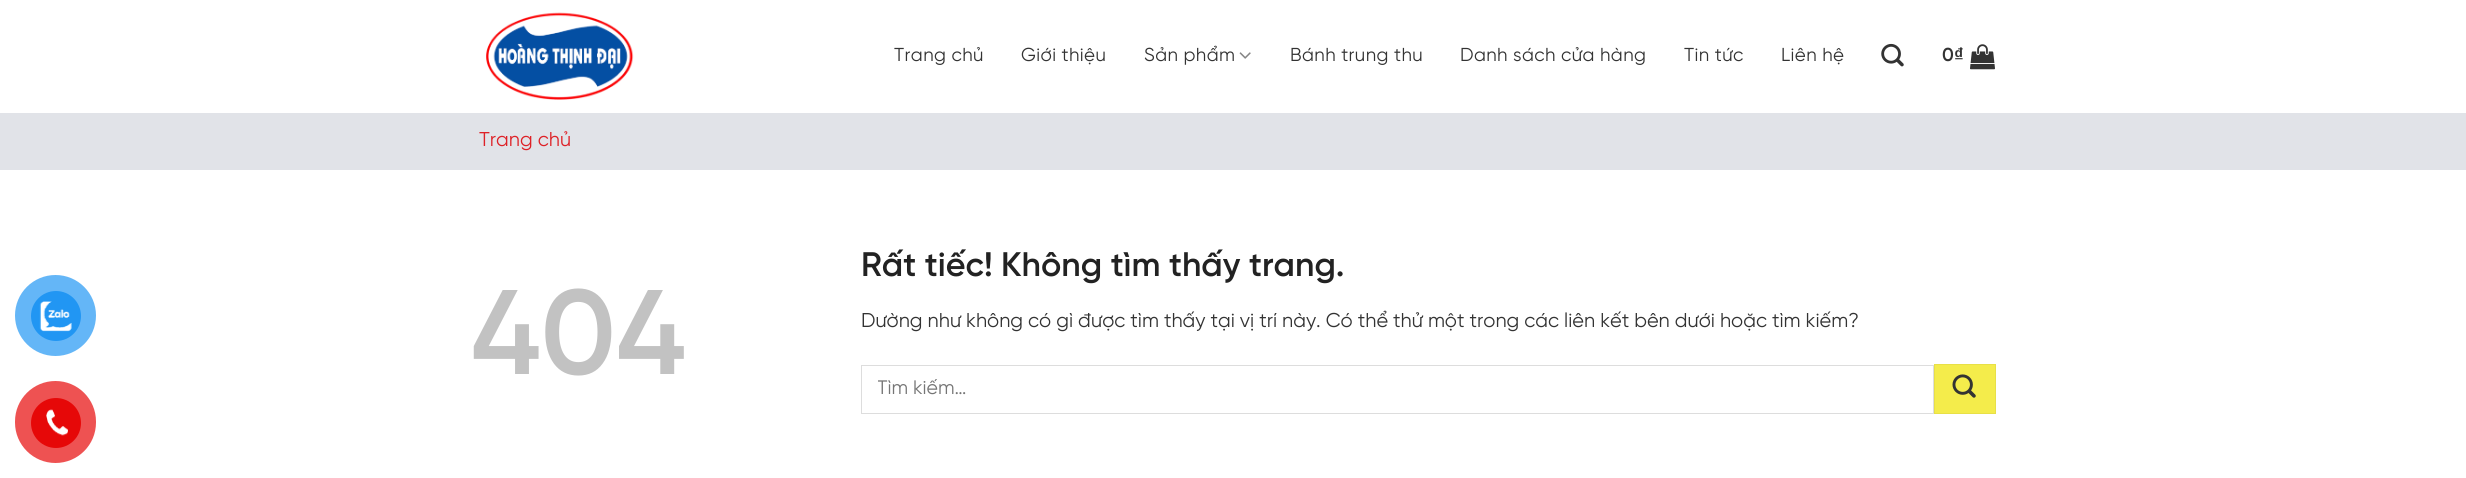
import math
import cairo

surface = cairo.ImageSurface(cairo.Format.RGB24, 2466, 478)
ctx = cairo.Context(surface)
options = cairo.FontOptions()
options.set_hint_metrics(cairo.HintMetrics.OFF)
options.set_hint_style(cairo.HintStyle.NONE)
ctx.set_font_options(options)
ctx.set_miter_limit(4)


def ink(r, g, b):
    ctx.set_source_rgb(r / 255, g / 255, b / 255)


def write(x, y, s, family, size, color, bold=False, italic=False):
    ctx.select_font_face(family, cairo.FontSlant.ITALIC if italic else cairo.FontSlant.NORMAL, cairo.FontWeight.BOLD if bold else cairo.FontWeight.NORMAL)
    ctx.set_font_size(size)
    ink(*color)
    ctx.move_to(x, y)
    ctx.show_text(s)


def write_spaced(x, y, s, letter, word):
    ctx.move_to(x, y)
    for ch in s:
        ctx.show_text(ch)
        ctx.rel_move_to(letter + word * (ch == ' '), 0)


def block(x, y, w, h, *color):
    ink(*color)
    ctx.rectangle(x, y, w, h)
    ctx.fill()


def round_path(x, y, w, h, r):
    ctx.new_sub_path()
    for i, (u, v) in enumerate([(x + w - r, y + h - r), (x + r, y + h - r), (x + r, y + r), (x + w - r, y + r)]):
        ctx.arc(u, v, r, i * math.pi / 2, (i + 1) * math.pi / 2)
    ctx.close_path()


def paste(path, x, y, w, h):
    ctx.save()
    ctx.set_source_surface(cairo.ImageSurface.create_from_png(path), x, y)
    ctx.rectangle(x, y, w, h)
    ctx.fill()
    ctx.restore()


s1 = dict(family="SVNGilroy", size=20, color=(222, 33, 39))
s2 = dict(family="SVNGilroy SemiBold", size=120, color=(194, 194, 194))
s3 = dict(family="SVNGilroy SemiBold", size=34, color=(34, 34, 34))
s4 = dict(family="SVNGilroy", size=20, color=(51, 51, 51))
s5 = dict(family="SVNGilroy", size=19.5, color=(117, 117, 117))

ink(255, 255, 255)
ctx.paint()
ink(100, 182, 247)
ctx.arc(55.5, 315.5, 40.5, 0, 2 * math.pi)
ctx.fill()
ink(33, 150, 243)
ctx.arc(56, 316, 25, 0, 2 * math.pi)
ctx.fill()
paste("pic1.png", 39, 301, 33, 31)
ink(238, 82, 82)
round_path(15, 381, 81, 82, 40.5)
ctx.fill()
ink(230, 8, 8)
ctx.arc(56, 423, 25, 0, 2 * math.pi)
ctx.fill()
paste("pic2.png", 46, 409, 22, 27)
paste("pic3.png", 486, 12, 148, 88)
ctx.select_font_face("SVNGilroy")
ctx.set_font_size(18.75)
ink(51, 51, 51)
write_spaced(894, 61, "Trang chủ", 0.4, 0)
write_spaced(1021, 61, "Giới thiệu", 0.4, 0)
write_spaced(1144, 61, "Sản phẩm", 0.4, 0)
paste("pic4.png", 1239, 52, 12, 7)
write_spaced(1290, 61, "Bánh trung thu", 0.4, 0)
write_spaced(1460, 61, "Danh sách cửa hàng", 0.4, 0)
write_spaced(1684, 61, "Tin tức", 0.4, 0)
write_spaced(1781, 61, "Liên hệ", 0.4, 0)
paste("pic5.png", 1881, 43, 23, 24)
ctx.select_font_face("SVNGilroy SemiBold")
write_spaced(1942, 61, "0", 0.4, 0)
ctx.select_font_face("Liberation Sans", cairo.FontSlant.NORMAL, cairo.FontWeight.BOLD)
write_spaced(1954, 61, "₫", 0.4, 0)
paste("pic6.png", 1970, 44, 25, 26)
block(0, 113, 2466, 57, 225, 227, 232)
write(479, 146, "Trang chủ", **s1)
write(471, 374, "404", **s2)
write(861, 276, "Rất tiếc! Không tìm thấy trang.", **s3)
write(861, 327, "Dường như không có gì được tìm thấy tại vị trí này. Có thể thử một trong các liên kết bên dưới hoặc tìm kiếm?", **s4)
ctx.rectangle(861.5, 365.5, 1072, 48)
ink(221, 221, 221)
ctx.set_line_width(1)
ctx.stroke()
ctx.save()
ctx.rectangle(878, 379, 1035, 20)
ctx.clip()
write(877, 394, "Tìm kiếm…", **s5)
ctx.restore()
ink(244, 236, 75)
ctx.rectangle(1934.5, 364.5, 61, 49)
ctx.fill_preserve()
ink(232, 224, 71)
ctx.stroke()
paste("pic7.png", 1952, 374, 24, 24)
surface.write_to_png("screenshot.png")
